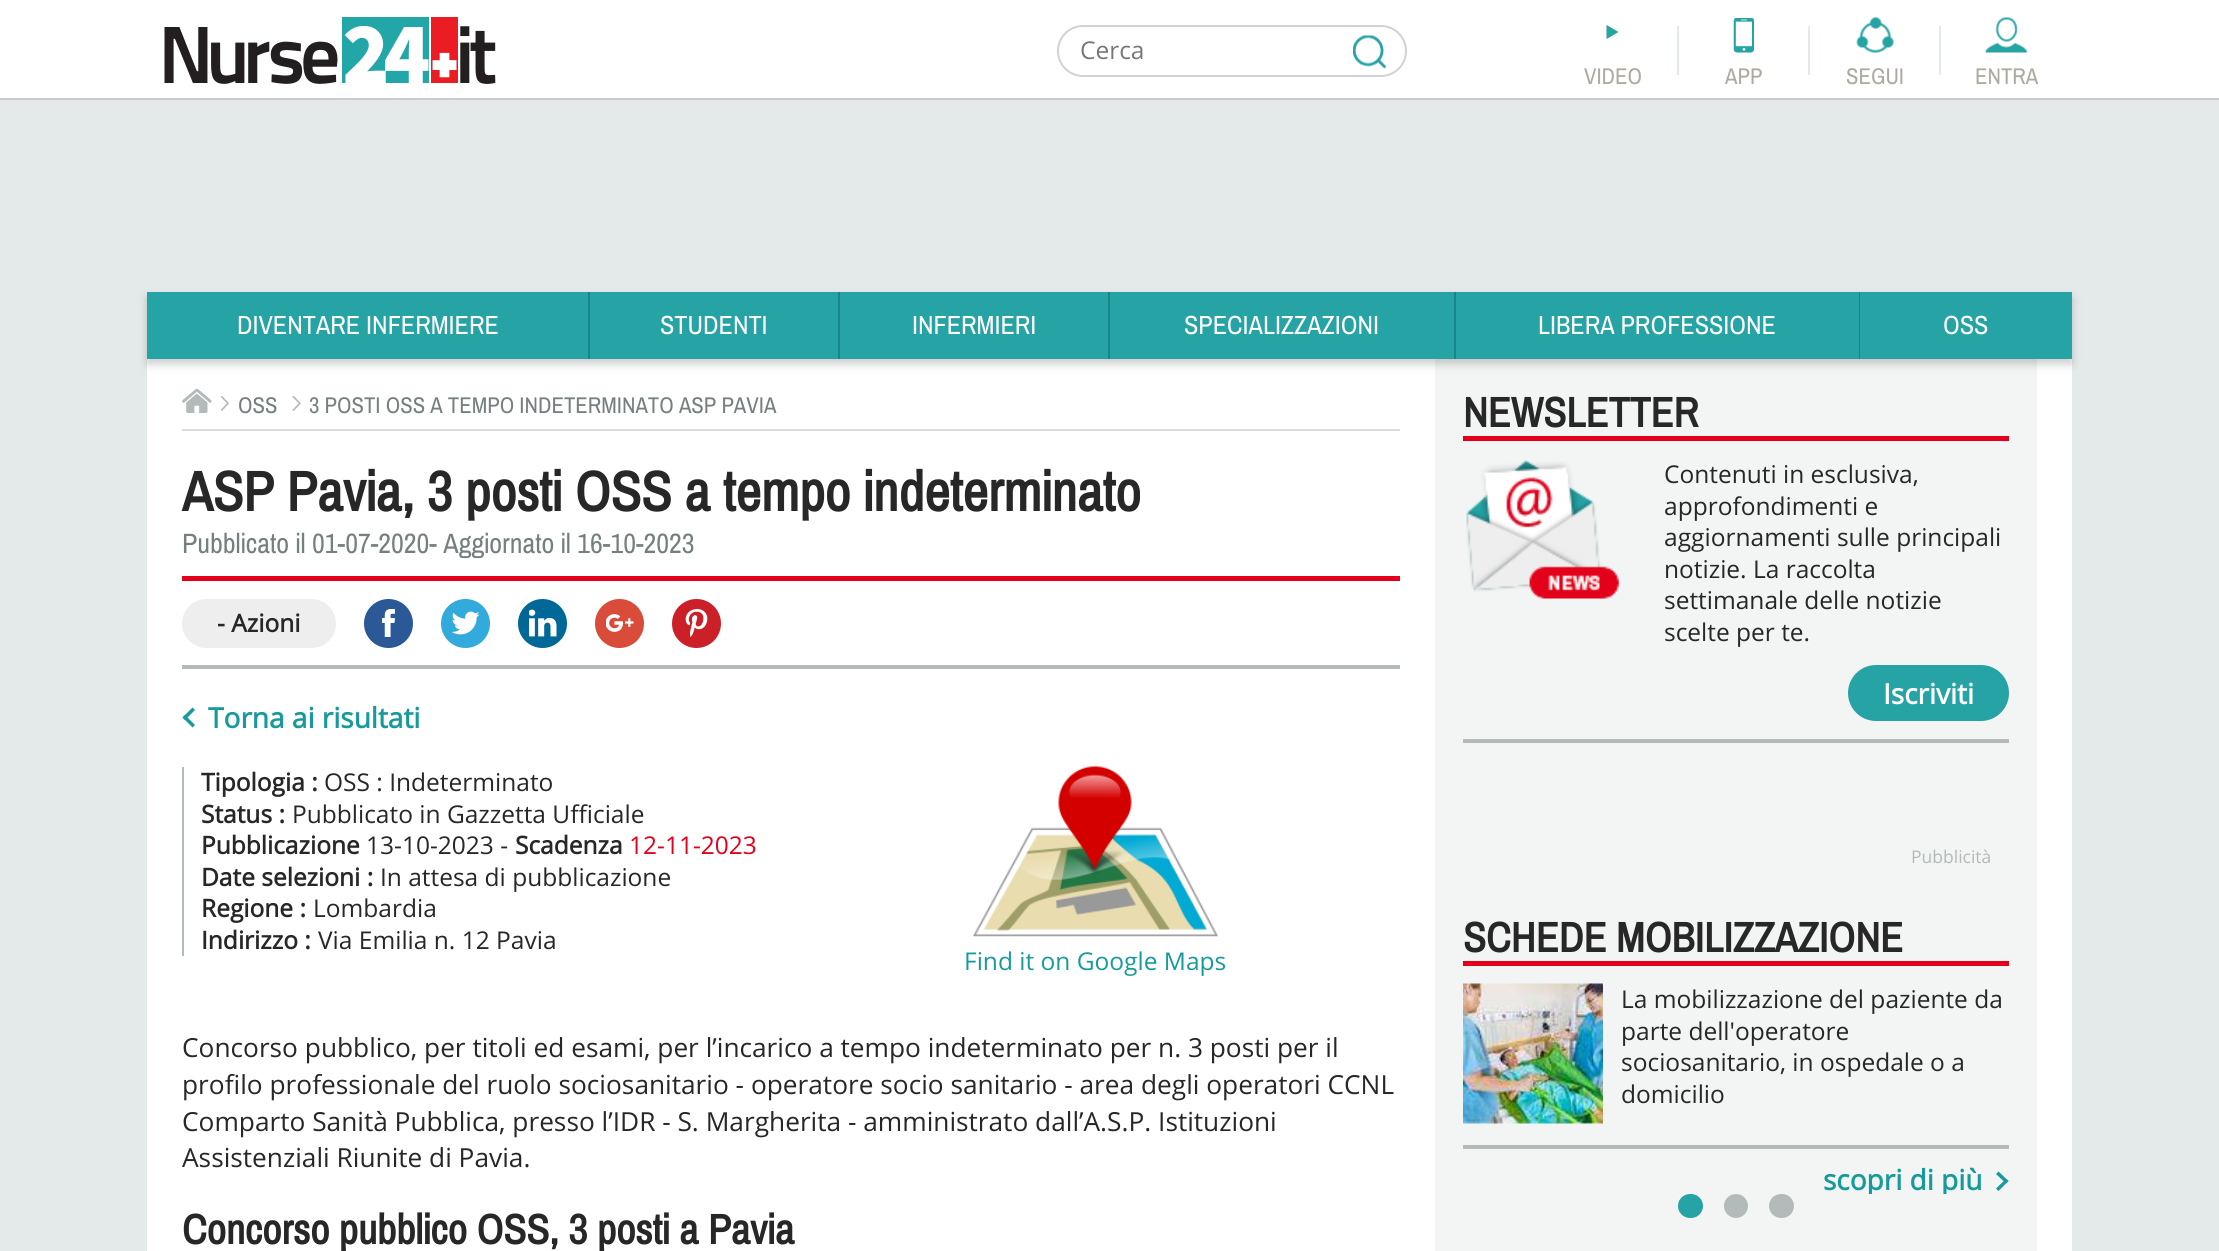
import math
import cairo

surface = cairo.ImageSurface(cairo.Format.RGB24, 2219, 1251)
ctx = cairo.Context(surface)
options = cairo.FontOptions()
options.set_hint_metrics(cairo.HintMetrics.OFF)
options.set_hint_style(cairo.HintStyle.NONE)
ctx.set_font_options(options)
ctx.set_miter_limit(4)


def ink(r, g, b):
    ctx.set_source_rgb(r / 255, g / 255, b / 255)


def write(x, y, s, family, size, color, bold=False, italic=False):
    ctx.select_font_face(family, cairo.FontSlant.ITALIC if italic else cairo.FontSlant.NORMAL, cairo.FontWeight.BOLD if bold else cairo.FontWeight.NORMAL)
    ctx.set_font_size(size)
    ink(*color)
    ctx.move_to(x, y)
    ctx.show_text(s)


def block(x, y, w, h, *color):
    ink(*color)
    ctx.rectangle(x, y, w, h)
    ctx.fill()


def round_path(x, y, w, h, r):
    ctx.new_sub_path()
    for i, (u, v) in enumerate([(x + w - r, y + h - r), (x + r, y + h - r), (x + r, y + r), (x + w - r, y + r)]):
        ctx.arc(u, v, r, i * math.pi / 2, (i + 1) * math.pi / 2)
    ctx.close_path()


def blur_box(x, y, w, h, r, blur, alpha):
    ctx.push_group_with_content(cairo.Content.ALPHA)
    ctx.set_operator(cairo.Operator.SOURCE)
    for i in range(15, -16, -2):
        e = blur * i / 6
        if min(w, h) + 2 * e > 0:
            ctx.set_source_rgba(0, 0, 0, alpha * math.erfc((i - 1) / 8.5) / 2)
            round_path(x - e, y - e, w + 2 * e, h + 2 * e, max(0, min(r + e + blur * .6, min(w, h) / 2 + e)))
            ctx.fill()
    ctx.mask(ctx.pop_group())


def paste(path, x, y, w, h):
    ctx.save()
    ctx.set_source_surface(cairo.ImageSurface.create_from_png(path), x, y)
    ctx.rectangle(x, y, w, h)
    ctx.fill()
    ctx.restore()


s1 = dict(family="Open Sans", size=24.5, color=(120, 120, 120))
s2 = dict(family="Archivo Narrow", size=22.75, color=(173, 170, 159))
s3 = dict(family="Archivo Narrow", size=26.25, color=(255, 255, 255))
s4 = dict(family="Archivo Narrow", size=22.75, color=(118, 127, 127))
s5 = dict(family="Archivo Narrow", size=56, color=(39, 39, 39), bold=True)
s6 = dict(family="Archivo Narrow", size=28, color=(118, 127, 127))
s7 = dict(family="Open Sans", size=24.5, color=(39, 39, 39), bold=True)
s8 = dict(family="Open Sans", size=28, color=(23, 154, 156), bold=True)
s9 = dict(family="Open Sans", size=24.5, color=(39, 39, 39))
s10 = dict(family="Open Sans", size=24.5, color=(226, 0, 26))
s11 = dict(family="Open Sans", size=24.5, color=(23, 154, 156))
s12 = dict(family="Open Sans", size=26.25, color=(39, 39, 39))
s13 = dict(family="Archivo Narrow", size=42, color=(39, 39, 39), bold=True)
s14 = dict(family="Open Sans", size=28, color=(255, 255, 255), bold=True)
s15 = dict(family="Open Sans", size=17.5, color=(179, 186, 186))

ink(228, 233, 233)
ctx.paint()
block(0, 0, 2219, 98, 255, 255, 255)
block(0, 98, 2219, 2, 204, 204, 204)
paste("pic1.png", 164, 17, 332, 67)
paste("pic2.png", 1353, 35, 33, 34)
round_path(1058, 26, 348, 50, 25)
ink(210, 210, 210)
ctx.stroke()
write(1080, 59, "Cerca", **s1)
ink(38, 163, 165)
ctx.new_path()
ctx.move_to(1606.5, 25)
ctx.line_to(1618.5, 32)
ctx.line_to(1606.5, 39)
ctx.close_path()
ctx.fill()
write(1584, 84, "VIDEO", **s2)
block(1677, 26, 2, 49, 228, 233, 233)
paste("pic3.png", 1733, 18, 22, 35)
write(1725, 84, "APP", **s2)
block(1808, 26, 2, 49, 228, 233, 233)
paste("pic4.png", 1856, 17, 38, 36)
write(1846, 84, "SEGUI", **s2)
block(1939, 26, 2, 49, 228, 233, 233)
paste("pic5.png", 1985, 17, 43, 36)
write(1975, 84, "ENTRA", **s2)
block(147, 359, 1925, 892, 255, 255, 255)
block(1435, 359, 602, 892, 243, 244, 244)
ink(0, 0, 0)
blur_box(147, 298, 1925, 66, 0, 4.5, 0.2)
block(147, 292, 1712, 67, 38, 163, 165)
block(588, 292, 2, 67, 22, 134, 136)
write(237, 334, "DIVENTARE INFERMIERE", **s3)
block(838, 292, 2, 67, 22, 134, 136)
write(660, 334, "STUDENTI", **s3)
block(1108, 292, 2, 67, 22, 134, 136)
write(912, 334, "INFERMIERI", **s3)
block(1454, 292, 2, 67, 22, 134, 136)
write(1184, 334, "SPECIALIZZAZIONI", **s3)
block(1859, 292, 1, 67, 22, 134, 136)
write(1538, 334, "LIBERA PROFESSIONE", **s3)
block(1860, 292, 212, 67, 38, 163, 165)
write(1943, 334, "OSS", **s3)
block(182, 429, 1218, 2, 220, 220, 220)
paste("pic6.png", 182, 389, 30, 24)
paste("pic7.png", 221, 396, 8, 15)
write(238, 413, "OSS", **s4)
paste("pic8.png", 292, 396, 9, 15)
write(309, 413, "3 POSTI OSS A TEMPO INDETERMINATO ASP PAVIA", **s4)
write(182, 511, "ASP Pavia, 3 posti OSS a tempo indeterminato", **s5)
block(182, 576, 1218, 5, 226, 0, 26)
write(182, 553, "Pubblicato il 01-07-2020- Aggiornato il 16-10-2023", **s6)
block(182, 665, 1218, 4, 179, 186, 186)
ink(238, 238, 238)
round_path(182, 599, 154, 49, 24.5)
ctx.fill()
write(217, 632, "- Azioni", **s7)
ink(43, 89, 151)
ctx.new_path()
ctx.arc(388.5, 623.5, 24.5, 0, 2 * math.pi)
ctx.fill()
paste("pic9.png", 382, 609, 13, 28)
ink(50, 170, 220)
ctx.arc(465.5, 623.5, 24.5, 0, 2 * math.pi)
ctx.fill()
paste("pic10.png", 452, 611, 28, 24)
ink(0, 104, 151)
ctx.arc(542.5, 623.5, 24.5, 0, 2 * math.pi)
ctx.fill()
paste("pic11.png", 529, 609, 28, 28)
ink(217, 76, 58)
ctx.arc(619.5, 623.5, 24.5, 0, 2 * math.pi)
ctx.fill()
paste("pic12.png", 606, 614, 28, 18)
ink(203, 32, 39)
ctx.arc(696.5, 623.5, 24.5, 0, 2 * math.pi)
ctx.fill()
paste("pic13.png", 685, 609, 23, 28)
ink(23, 154, 156)
ctx.new_path()
ctx.move_to(195, 725)
ctx.line_to(192.5, 727.5)
ctx.line_to(182.5, 717.5)
ctx.line_to(185, 715)
ctx.close_path()
ctx.fill()
ctx.new_path()
ctx.move_to(195, 710)
ctx.line_to(185, 720)
ctx.line_to(182.5, 717.5)
ctx.line_to(192.5, 707.5)
ctx.close_path()
ctx.fill()
write(208, 728, "Torna ai risultati", **s8)
block(182, 767, 2, 189, 179, 186, 186)
write(201, 791, "Tipologia :", **s7)
write(324, 791, "OSS : Indeterminato", **s9)
write(201, 823, "Status :", **s7)
write(292, 823, "Pubblicato in Gazzetta Ufficiale", **s9)
write(201, 854, "Pubblicazione", **s7)
write(366, 854, "13-10-2023 -", **s9)
write(515, 854, "Scadenza", **s7)
write(629, 854, "12-11-2023", **s10)
write(201, 886, "Date selezioni :", **s7)
write(380, 886, "In attesa di pubblicazione", **s9)
write(201, 917, "Regione :", **s7)
write(313, 917, "Lombardia", **s9)
write(201, 949, "Indirizzo :", **s7)
write(318, 949, "Via Emilia n. 12 Pavia", **s9)
paste("pic14.png", 973, 766, 245, 171)
write(964, 970, "Find it on Google Maps", **s11)
write(182, 1057, "Concorso pubblico, per titoli ed esami, per l’incarico a tempo indeterminato per n. 3 posti per il", **s12)
write(182, 1094, "profilo professionale del ruolo sociosanitario - operatore socio sanitario - area degli operatori CCNL", **s12)
write(182, 1131, "Comparto Sanità Pubblica, presso l’IDR - S. Margherita - amministrato dall’A.S.P. Istituzioni", **s12)
write(182, 1167, "Assistenziali Riunite di Pavia.", **s12)
write(182, 1244, "Concorso pubblico OSS, 3 posti a Pavia", **s13)
block(1463, 436, 546, 5, 226, 0, 26)
write(1463, 427, "NEWSLETTER", **s13)
paste("pic15.png", 1466, 460, 153, 139)
write(1664, 483, "Contenuti in esclusiva,", **s9)
write(1664, 515, "approfondimenti e", **s9)
write(1664, 546, "aggiornamenti sulle principali", **s9)
write(1664, 578, "notizie. La raccolta", **s9)
write(1664, 609, "settimanale delle notizie", **s9)
write(1664, 641, "scelte per te.", **s9)
ink(38, 163, 165)
round_path(1848, 665, 161, 56, 28)
ctx.fill()
write(1883, 704, "Iscriviti", **s14)
block(1463, 739, 546, 4, 179, 186, 186)
write(1911, 863, "Pubblicità", **s15)
block(1463, 961, 546, 5, 226, 0, 26)
write(1463, 952, "SCHEDE MOBILIZZAZIONE", **s13)
paste("pic16.png", 1463, 983, 140, 141)
write(1621, 1008, "La mobilizzazione del paziente da", **s9)
write(1621, 1040, "parte dell'operatore", **s9)
write(1621, 1071, "sociosanitario, in ospedale o a", **s9)
write(1621, 1103, "domicilio", **s9)
block(1463, 1145, 546, 4, 179, 186, 186)
ctx.save()
ctx.rectangle(1463, 919, 546, 275)
ctx.clip()
write(1823, 1190, "scopri di più", **s8)
ctx.restore()
ink(23, 154, 156)
ctx.new_path()
ctx.move_to(1996, 1174)
ctx.line_to(1998.5, 1171.5)
ctx.line_to(2008.5, 1181)
ctx.line_to(2006, 1183.5)
ctx.close_path()
ctx.fill()
ctx.new_path()
ctx.move_to(1996, 1188.5)
ctx.line_to(2006, 1179)
ctx.line_to(2008.5, 1181)
ctx.line_to(1998.5, 1191)
ctx.close_path()
ctx.fill()
ink(38, 163, 165)
round_path(1678, 1194, 25, 24, 12)
ctx.fill()
ink(179, 186, 186)
ctx.arc(1736, 1206, 12, 0, 2 * math.pi)
ctx.fill()
round_path(1769, 1194, 25, 24, 12)
ctx.fill()
surface.write_to_png("screenshot.png")
